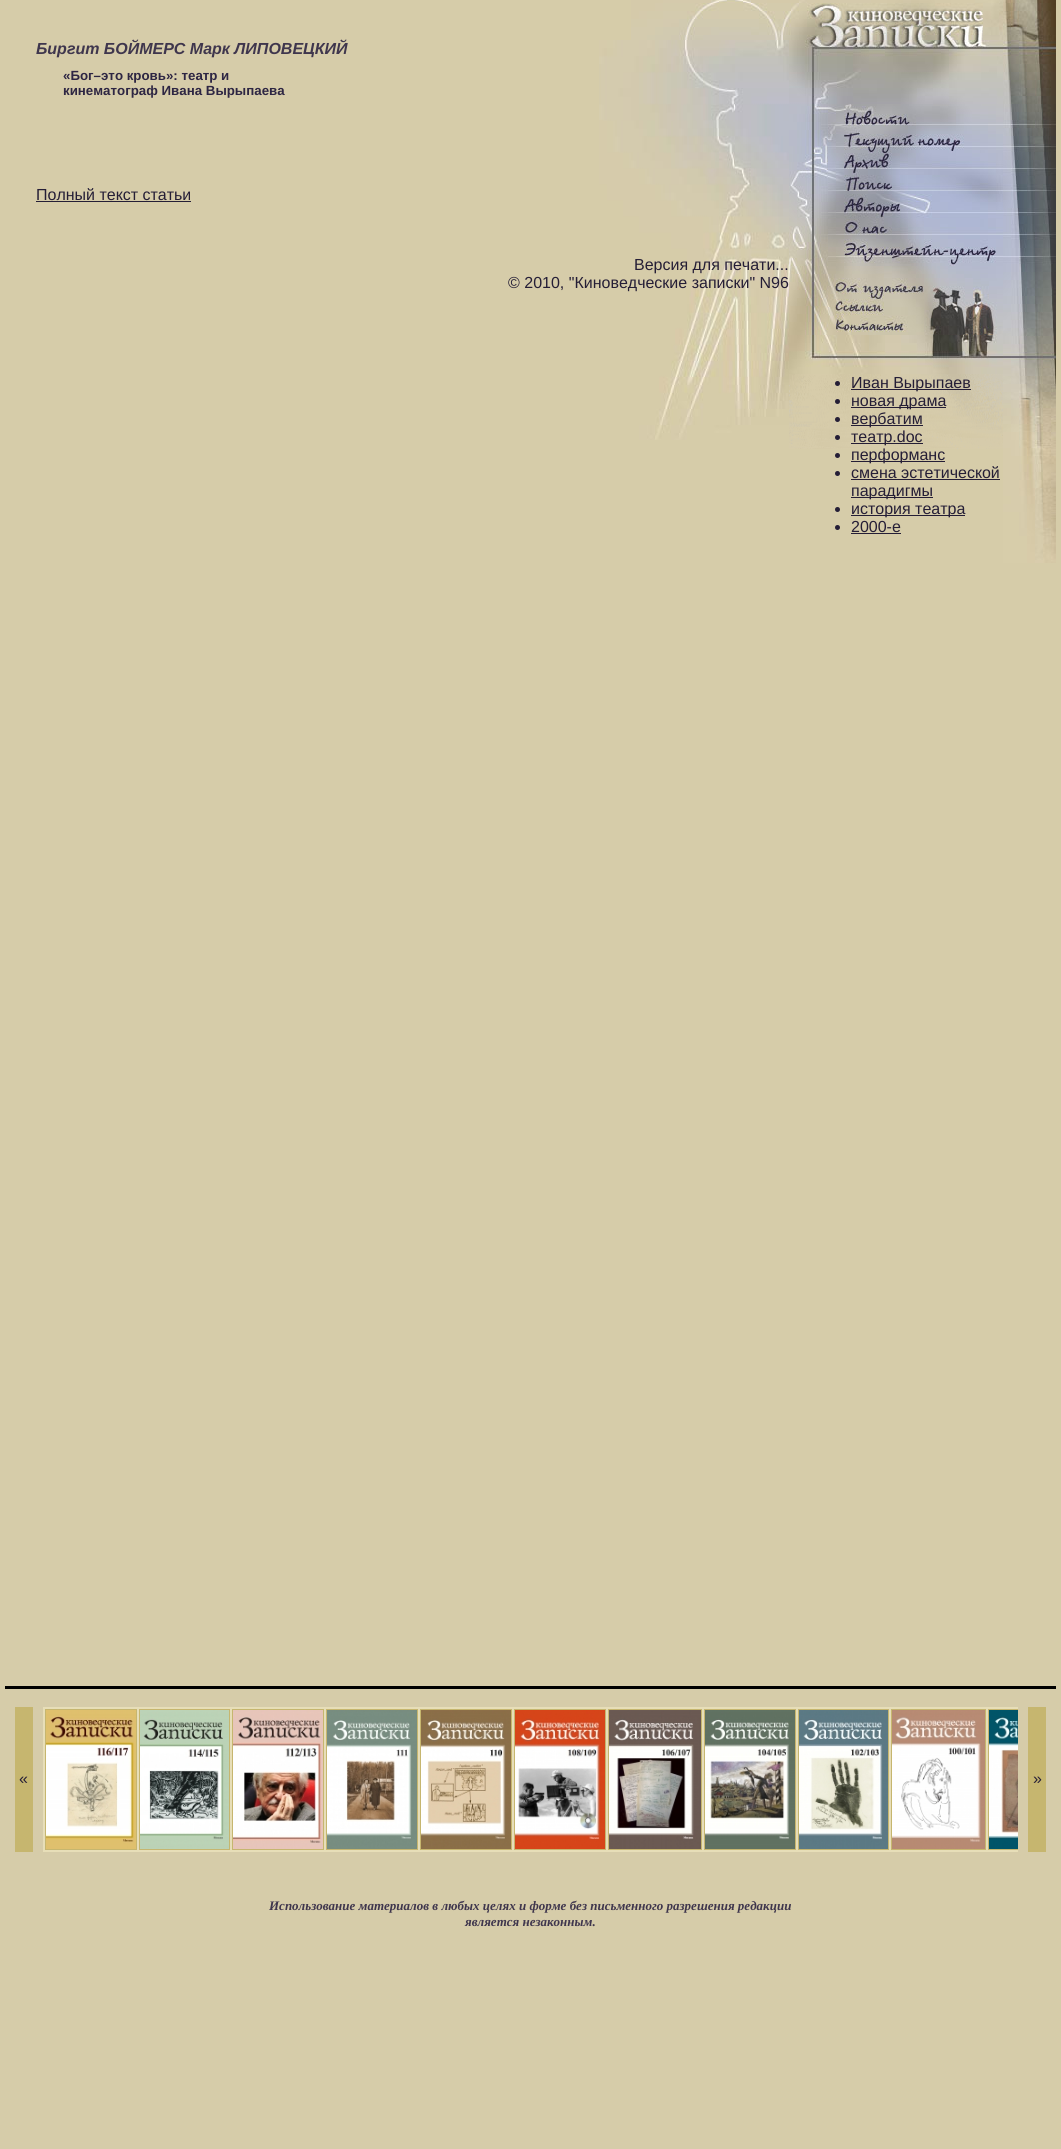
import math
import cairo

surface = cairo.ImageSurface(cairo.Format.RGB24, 1061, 2149)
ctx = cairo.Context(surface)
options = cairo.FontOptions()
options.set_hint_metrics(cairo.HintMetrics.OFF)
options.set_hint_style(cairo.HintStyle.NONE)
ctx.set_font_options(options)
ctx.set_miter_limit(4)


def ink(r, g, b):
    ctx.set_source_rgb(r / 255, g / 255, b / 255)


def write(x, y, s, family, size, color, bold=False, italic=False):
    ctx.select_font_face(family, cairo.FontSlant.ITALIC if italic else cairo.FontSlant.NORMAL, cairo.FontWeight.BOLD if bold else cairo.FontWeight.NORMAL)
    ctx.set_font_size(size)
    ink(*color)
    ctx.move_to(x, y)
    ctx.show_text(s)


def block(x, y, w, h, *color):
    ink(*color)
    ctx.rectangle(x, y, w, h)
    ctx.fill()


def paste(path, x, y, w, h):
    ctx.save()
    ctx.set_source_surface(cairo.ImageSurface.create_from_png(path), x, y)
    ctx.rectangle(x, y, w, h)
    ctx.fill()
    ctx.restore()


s1 = dict(family="Liberation Sans", size=16, color=(63, 54, 77), bold=True, italic=True)
s2 = dict(family="Liberation Sans", size=13.3, color=(46, 38, 67), bold=True)
s3 = dict(family="Liberation Sans", size=16, color=(37, 30, 54))
s4 = dict(family="Liberation Serif", size=13, color=(63, 54, 77), bold=True, italic=True)

ink(214, 204, 169)
ctx.paint()
paste("pic1.png", 631, 0, 372, 40)
paste("pic2.png", 1003, 0, 53, 40)
paste("pic3.png", 599, 40, 190, 400)
write(36, 54, "Биргит БОЙМЕРС Марк ЛИПОВЕЦКИЙ", **s1)
write(63, 80, "«Бог–это кровь»: театр и", **s2)
write(63, 95, "кинематограф Ивана Вырыпаева", **s2)
write(36, 200, "Полный текст статьи", **s3)
block(36, 201, 155, 1, 37, 30, 54)
write(634, 270, "Версия для печати...", **s3)
write(508, 288, "© 2010, \"Киноведческие записки\" N96", **s3)
paste("pic4.png", 789, 40, 214, 66)
paste("pic5.png", 789, 106, 39, 229)
paste("pic6.png", 828, 106, 175, 20)
paste("pic7.png", 828, 126, 175, 27)
paste("pic8.png", 828, 153, 175, 22)
paste("pic9.png", 828, 175, 175, 19)
paste("pic10.png", 828, 194, 175, 25)
paste("pic11.png", 828, 219, 175, 20)
paste("pic12.png", 828, 239, 175, 27)
paste("pic13.png", 828, 266, 175, 12)
paste("pic14.png", 828, 278, 97, 21)
paste("pic15.png", 925, 278, 78, 57)
paste("pic16.png", 828, 299, 97, 17)
paste("pic17.png", 828, 316, 97, 19)
paste("pic18.png", 789, 335, 214, 39)
paste("pic19.png", 789, 374, 214, 75)
ctx.arc(837.5, 383.5, 2.5, 0, 2 * math.pi)
ctx.fill()
block(851, 389, 120, 1, 37, 30, 54)
write(851, 388, "Иван Вырыпаев", **s3)
ctx.new_path()
ctx.arc(837.5, 401.5, 2.5, 0, 2 * math.pi)
ctx.fill()
block(851, 407, 95, 1, 37, 30, 54)
write(851, 406, "новая драма", **s3)
ctx.new_path()
ctx.arc(837.5, 419.5, 2.5, 0, 2 * math.pi)
ctx.fill()
block(851, 425, 72, 1, 37, 30, 54)
write(851, 424, "вербатим", **s3)
ctx.new_path()
ctx.arc(837.5, 437.5, 2.5, 0, 2 * math.pi)
ctx.fill()
block(851, 443, 72, 1, 37, 30, 54)
write(851, 442, "театр.doc", **s3)
ctx.new_path()
ctx.arc(837.5, 455.5, 2.5, 0, 2 * math.pi)
ctx.fill()
block(851, 461, 94, 1, 37, 30, 54)
write(851, 460, "перформанс", **s3)
ctx.new_path()
ctx.arc(837.5, 473.5, 2.5, 0, 2 * math.pi)
ctx.fill()
write(851, 478, "смена эстетической", **s3)
block(851, 479, 149, 1, 37, 30, 54)
block(851, 497, 82, 1, 37, 30, 54)
write(851, 496, "парадигмы", **s3)
ctx.new_path()
ctx.arc(837.5, 509.5, 2.5, 0, 2 * math.pi)
ctx.fill()
block(851, 515, 114, 1, 37, 30, 54)
write(851, 514, "история театра", **s3)
ctx.new_path()
ctx.arc(837.5, 527.5, 2.5, 0, 2 * math.pi)
ctx.fill()
write(851, 532, "2000-е", **s3)
block(851, 533, 50, 1, 37, 30, 54)
paste("pic20.png", 1003, 40, 53, 523)
block(5, 1686, 1051, 3, 0, 0, 0)
block(15, 1707, 18, 145, 198, 182, 111)
write(19, 1784, "«", **s3)
block(43, 1707, 975, 145, 231, 222, 184)
block(45, 1709, 92, 141, 198, 182, 111)
paste("pic21.png", 46, 1710, 90, 139)
block(139, 1709, 91, 141, 198, 182, 111)
paste("pic22.png", 140, 1710, 89, 139)
block(232, 1709, 92, 141, 198, 182, 111)
paste("pic23.png", 233, 1710, 90, 139)
block(326, 1709, 92, 141, 198, 182, 111)
paste("pic24.png", 327, 1710, 90, 139)
block(420, 1709, 92, 141, 198, 182, 111)
paste("pic25.png", 421, 1710, 90, 139)
block(514, 1709, 92, 141, 198, 182, 111)
paste("pic26.png", 515, 1710, 90, 139)
block(608, 1709, 94, 141, 198, 182, 111)
paste("pic27.png", 609, 1710, 92, 139)
block(704, 1709, 92, 141, 198, 182, 111)
paste("pic28.png", 705, 1710, 90, 139)
block(798, 1709, 91, 141, 198, 182, 111)
paste("pic29.png", 799, 1710, 89, 139)
block(891, 1709, 95, 141, 198, 182, 111)
paste("pic30.png", 892, 1710, 93, 139)
block(988, 1709, 30, 141, 198, 182, 111)
paste("pic31.png", 989, 1710, 29, 139)
block(1028, 1707, 18, 145, 198, 182, 111)
write(1033, 1784, "»", **s3)
write(269, 1910, "Использование материалов в любых целях и форме без письменного разрешения редакции", **s4)
write(465, 1926, "является незаконным.", **s4)
surface.write_to_png("screenshot.png")
